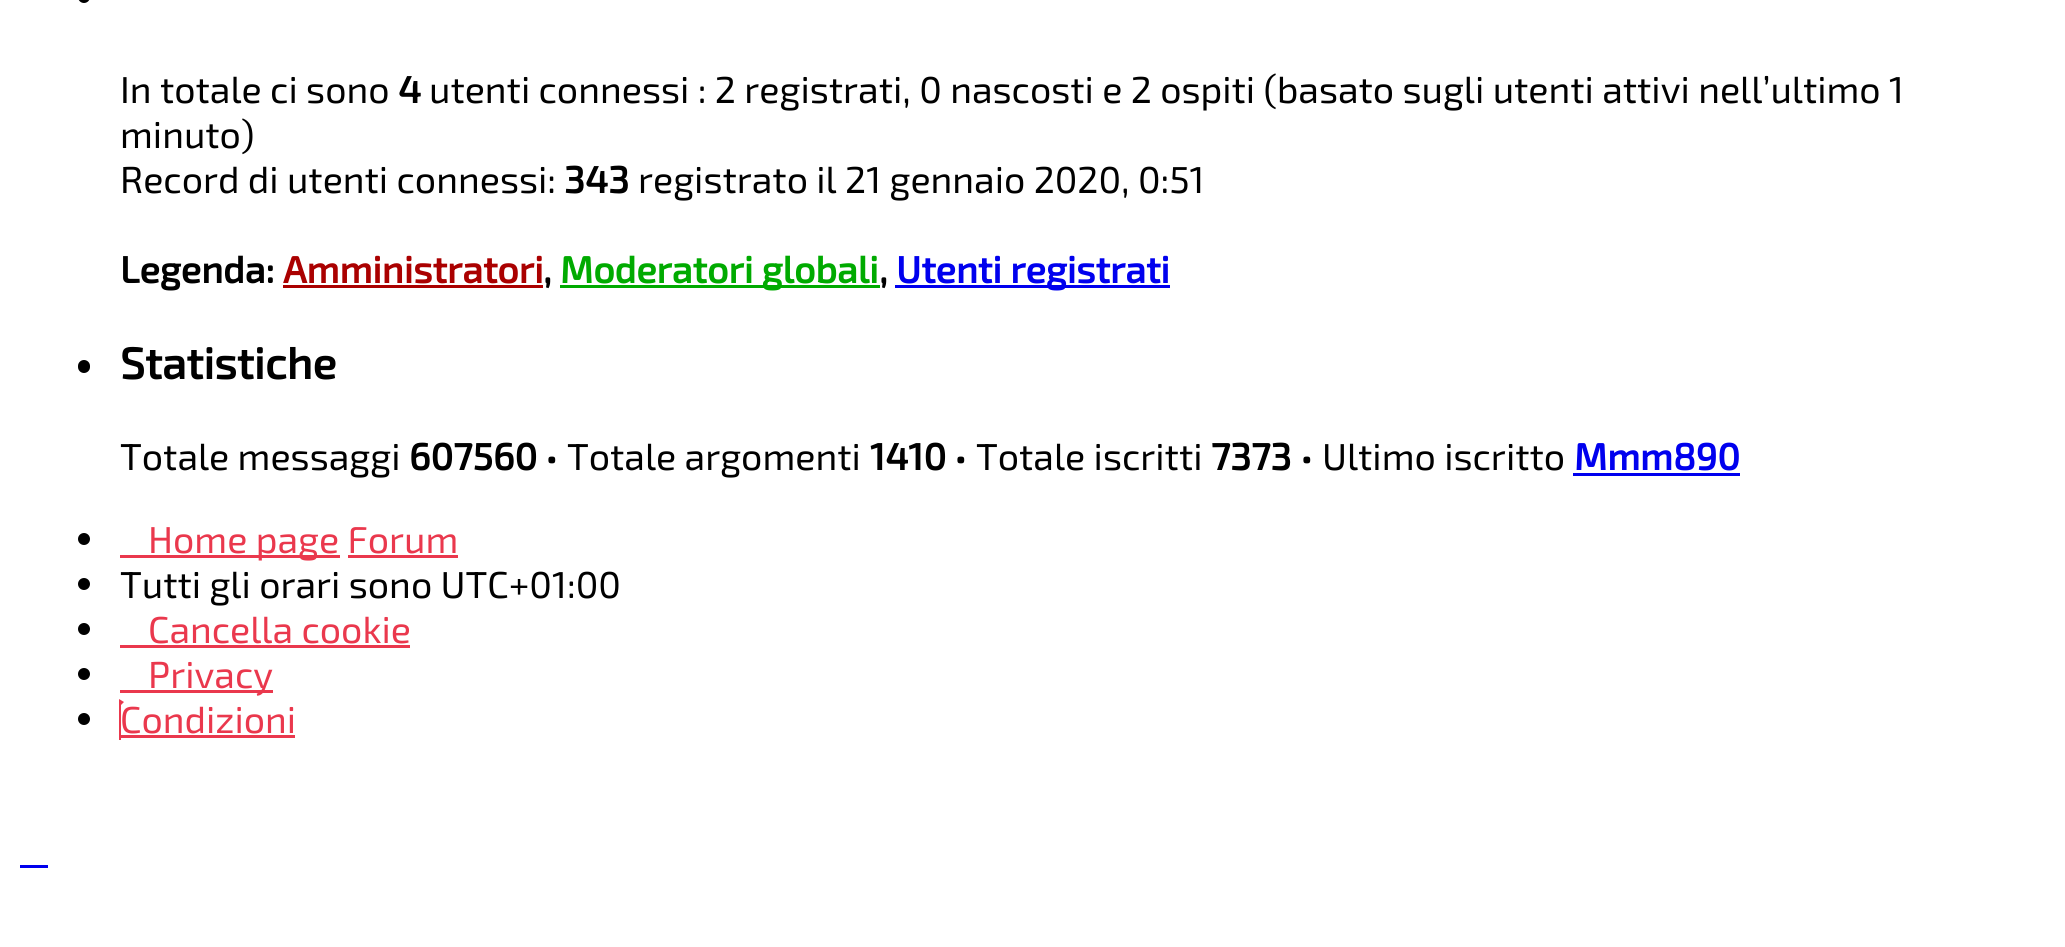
import math
import cairo

surface = cairo.ImageSurface(cairo.Format.RGB24, 2065, 947)
ctx = cairo.Context(surface)
options = cairo.FontOptions()
options.set_hint_metrics(cairo.HintMetrics.OFF)
options.set_hint_style(cairo.HintStyle.NONE)
ctx.set_font_options(options)
ctx.set_miter_limit(4)


def ink(r, g, b):
    ctx.set_source_rgb(r / 255, g / 255, b / 255)


def write(x, y, s, family, size, color, bold=False, italic=False):
    ctx.select_font_face(family, cairo.FontSlant.ITALIC if italic else cairo.FontSlant.NORMAL, cairo.FontWeight.BOLD if bold else cairo.FontWeight.NORMAL)
    ctx.set_font_size(size)
    ink(*color)
    ctx.move_to(x, y)
    ctx.show_text(s)


def block(x, y, w, h, *color):
    ink(*color)
    ctx.rectangle(x, y, w, h)
    ctx.fill()


def round_path(x, y, w, h, r):
    ctx.new_sub_path()
    for i, (u, v) in enumerate([(x + w - r, y + h - r), (x + r, y + h - r), (x + r, y + r), (x + w - r, y + r)]):
        ctx.arc(u, v, r, i * math.pi / 2, (i + 1) * math.pi / 2)
    ctx.close_path()


s1 = dict(family="Exo 2", size=37.5, color=(0, 0, 0))
s2 = dict(family="Exo 2", size=37.5, color=(0, 0, 0), bold=True)
s3 = dict(family="Exo 2", size=37.5, color=(170, 0, 0), bold=True)
s4 = dict(family="Exo 2", size=37.5, color=(0, 170, 0), bold=True)
s5 = dict(family="Exo 2", size=37.5, color=(0, 0, 238), bold=True)
s6 = dict(family="Exo 2", size=44, color=(0, 0, 0), bold=True)
s7 = dict(family="Exo 2", size=37.5, color=(234, 56, 77))

ink(255, 255, 255)
ctx.paint()
ink(0, 0, 0)
round_path(78, -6, 12, 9, 6)
ctx.fill()
write(120, 103, "In totale ci sono", **s1)
write(398, 103, "4", **s2)
write(429, 103, "utenti connessi : 2 registrati, 0 nascosti e 2 ospiti (basato sugli utenti attivi nell’ultimo 1", **s1)
write(120, 148, "minuto)", **s1)
write(120, 193, "Record di utenti connessi:", **s1)
write(564, 193, "343", **s2)
write(638, 193, "registrato il 21 gennaio 2020, 0:51", **s1)
write(120, 283, "Legenda:", **s2)
write(283, 283, "Amministratori", **s3)
write(543, 283, ",", **s2)
block(283, 285, 260, 3, 170, 0, 0)
block(560, 285, 320, 3, 0, 170, 0)
write(560, 283, "Moderatori globali", **s4)
write(879, 283, ",", **s2)
block(895, 285, 275, 3, 0, 0, 238)
write(896, 283, "Utenti registrati", **s5)
ink(0, 0, 0)
round_path(78, 360, 12, 13, 6)
ctx.fill()
write(120, 379, "Statistiche", **s6)
write(120, 470, "Totale messaggi", **s1)
write(409, 470, "607560", **s2)
write(545, 470, "• Totale argomenti", **s1)
write(870, 470, "1410", **s2)
write(954, 470, "• Totale iscritti", **s1)
write(1211, 470, "7373", **s2)
write(1300, 470, "• Ultimo iscritto", **s1)
write(1574, 470, "Mmm890", **s5)
block(1573, 473, 167, 3, 0, 0, 238)
ink(0, 0, 0)
ctx.new_path()
ctx.arc(84, 539, 6, 0, 2 * math.pi)
ctx.fill()
block(120, 555, 220, 3, 234, 56, 77)
write(148, 553, "Home page Forum", **s7)
block(348, 555, 110, 3, 234, 56, 77)
ink(0, 0, 0)
ctx.new_path()
ctx.arc(84, 584, 6, 0, 2 * math.pi)
ctx.fill()
write(120, 598, "Tutti gli orari sono UTC+01:00", **s1)
ctx.new_path()
ctx.arc(84, 629, 6, 0, 2 * math.pi)
ctx.fill()
write(148, 643, "Cancella cookie", **s7)
block(120, 645, 290, 3, 234, 56, 77)
ink(0, 0, 0)
ctx.new_path()
ctx.arc(84, 674, 6, 0, 2 * math.pi)
ctx.fill()
block(120, 690, 153, 3, 234, 56, 77)
write(148, 688, "Privacy", **s7)
ink(0, 0, 0)
ctx.new_path()
ctx.arc(84, 719, 6, 0, 2 * math.pi)
ctx.fill()
ink(234, 56, 77)
ctx.new_path()
ctx.move_to(124, 702)
ctx.line_to(121, 705)
ctx.line_to(121, 740)
ctx.line_to(119, 740)
ctx.line_to(119, 699)
ctx.close_path()
ctx.fill()
write(120, 733, "Condizioni", **s7)
block(120, 735, 175, 3, 234, 56, 77)
block(20, 865, 28, 3, 0, 0, 238)
surface.write_to_png("screenshot.png")
